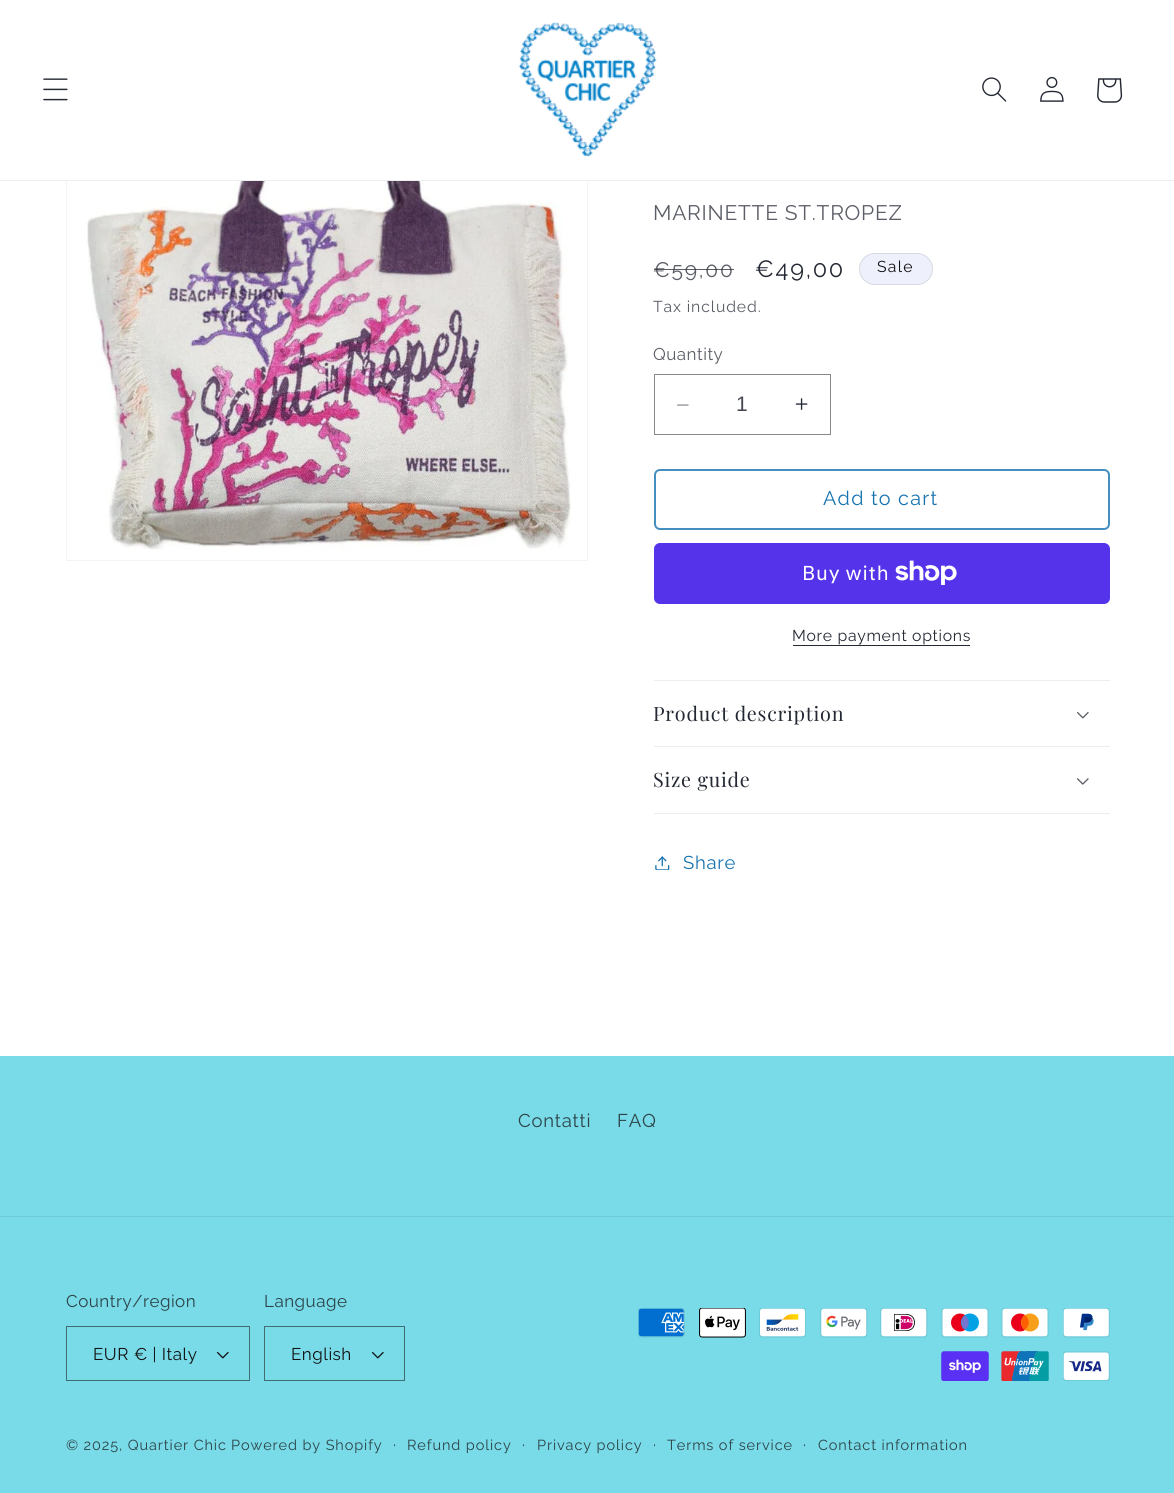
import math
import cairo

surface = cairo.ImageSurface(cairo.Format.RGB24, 1174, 1493)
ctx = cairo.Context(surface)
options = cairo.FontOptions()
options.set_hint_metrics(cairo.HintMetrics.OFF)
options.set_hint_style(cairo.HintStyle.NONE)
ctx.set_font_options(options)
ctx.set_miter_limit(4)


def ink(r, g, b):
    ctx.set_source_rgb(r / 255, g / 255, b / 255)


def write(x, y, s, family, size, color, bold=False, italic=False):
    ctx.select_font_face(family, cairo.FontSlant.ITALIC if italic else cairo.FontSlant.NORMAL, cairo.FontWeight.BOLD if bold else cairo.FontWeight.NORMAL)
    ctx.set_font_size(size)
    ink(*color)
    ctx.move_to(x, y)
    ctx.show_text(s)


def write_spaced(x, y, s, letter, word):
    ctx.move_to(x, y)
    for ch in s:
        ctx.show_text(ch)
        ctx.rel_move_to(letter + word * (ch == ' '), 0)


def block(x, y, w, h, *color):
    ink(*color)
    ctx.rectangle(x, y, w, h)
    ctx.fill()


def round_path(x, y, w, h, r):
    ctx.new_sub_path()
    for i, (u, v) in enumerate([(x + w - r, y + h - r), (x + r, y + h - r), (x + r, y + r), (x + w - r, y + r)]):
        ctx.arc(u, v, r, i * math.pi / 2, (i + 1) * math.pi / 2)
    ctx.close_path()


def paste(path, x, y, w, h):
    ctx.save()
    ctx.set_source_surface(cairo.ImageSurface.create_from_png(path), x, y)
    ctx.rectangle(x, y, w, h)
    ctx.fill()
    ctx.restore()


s1 = dict(family="Liberation Sans", size=21, color=(69, 72, 82))

ink(255, 255, 255)
ctx.paint()
ctx.rectangle(66.5, 40.5, 521, 520)
ink(244, 244, 245)
ctx.set_line_width(1)
ctx.stroke()
block(66, 40, 522, 140, 255, 255, 255)
block(0, 180, 1174, 1, 237, 238, 239)
paste("pic1.png", 43, 78, 25, 23)
paste("pic2.png", 518, 22, 139, 135)
paste("pic3.png", 982, 77, 25, 25)
paste("pic4.png", 1040, 76, 24, 26)
paste("pic5.png", 1097, 78, 26, 25)
paste("pic6.png", 85, 181, 486, 369)
ctx.select_font_face("Raleway")
ctx.set_font_size(21)
ink(91, 94, 102)
write_spaced(653, 220, "MARINETTE ST.TROPEZ", 0.75, 0)
write_spaced(653, 277, "€59,00", 1.75, 0)
ctx.set_source_rgba(0.141, 0.157, 0.2, 0.75)
ctx.rectangle(654, 269, 80, 1)
ctx.fill()
ctx.set_font_size(23.5)
ink(36, 40, 51)
write_spaced(755, 277, "€49,00", 1.75, 0)
ink(238, 241, 251)
round_path(859, 253, 74, 32, 16)
ctx.fill()
round_path(859.5, 253.5, 73, 31, 15.5)
ctx.set_source_rgba(0.071, 0.071, 0.071, 0.1)
ctx.stroke()
ctx.set_font_size(15.75)
ink(18, 18, 18)
write_spaced(877, 272, "Sale", 1.25, 0)
ink(91, 94, 102)
write_spaced(653, 312, "Tax included.", 0.9, 0)
ctx.set_font_size(17)
write_spaced(653, 360, "Quantity", 0.5, 0)
paste("pic7.png", 677, 404, 12, 2)
paste("pic8.png", 795, 398, 13, 12)
ctx.rectangle(654.5, 374.5, 176, 60)
ink(135, 137, 143)
ctx.stroke()
write(736, 411, "1", **s1)
round_path(655, 470, 454, 59, 5)
ink(69, 143, 192)
ctx.set_line_width(2)
ctx.stroke()
ctx.select_font_face("Raleway")
ctx.set_font_size(19.75)
ink(23, 115, 176)
write_spaced(823, 505, "Add to cart", 1.25, 0)
ink(84, 51, 235)
round_path(654, 543, 456, 61, 6)
ctx.fill()
ctx.select_font_face("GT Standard")
ctx.set_font_size(20)
ink(255, 255, 255)
write_spaced(802, 580, "Buy with", 0.75, 0)
paste("pic9.png", 895, 560, 62, 25)
ctx.select_font_face("Raleway")
ctx.set_font_size(15.75)
ink(36, 40, 51)
write_spaced(792, 641, "More payment options", 0.7, 0)
block(793, 645, 177, 1, 36, 40, 51)
block(654, 680, 456, 1, 237, 238, 239)
block(654, 746, 456, 1, 237, 238, 239)
ctx.select_font_face("Playfair Display")
ctx.set_font_size(19.75)
ink(36, 40, 51)
write_spaced(653, 721, "Product description", 0.75, 0)
paste("pic10.png", 1077, 712, 12, 7)
block(654, 813, 456, 1, 237, 238, 239)
ink(36, 40, 51)
write_spaced(653, 787, "Size guide", 0.75, 0)
paste("pic11.png", 1077, 778, 12, 7)
paste("pic12.png", 655, 856, 15, 14)
ctx.select_font_face("Raleway")
ctx.set_font_size(18.5)
ink(23, 115, 176)
write_spaced(683, 869, "Share", 0.75, 0)
block(0, 1056, 1174, 437, 121, 218, 232)
ink(44, 68, 72)
write_spaced(518, 1127, "Contatti", 0.75, 0)
write_spaced(617, 1127, "FAQ", 0.75, 0)
block(0, 1216, 1174, 1, 113, 202, 215)
ctx.set_font_size(17)
ink(44, 68, 72)
write_spaced(66, 1307, "Country/region", 0.5, 0)
paste("pic13.png", 216, 1352, 13, 7)
ctx.rectangle(66.5, 1326.5, 183, 54)
ink(64, 108, 114)
ctx.set_line_width(1)
ctx.stroke()
ink(18, 18, 18)
write_spaced(93, 1360, "EUR € | Italy", 0.5, 0)
ink(44, 68, 72)
write_spaced(264, 1307, "Language", 0.5, 0)
paste("pic13.png", 371, 1352, 13, 7)
ctx.rectangle(264.5, 1326.5, 140, 54)
ink(64, 108, 114)
ctx.stroke()
ink(18, 18, 18)
write_spaced(291, 1360, "English", 0.5, 0)
paste("pic14.png", 638, 1308, 47, 30)
paste("pic15.png", 699, 1308, 47, 30)
paste("pic16.png", 759, 1308, 47, 30)
paste("pic17.png", 820, 1308, 48, 30)
paste("pic18.png", 880, 1308, 48, 30)
paste("pic19.png", 941, 1308, 48, 30)
paste("pic20.png", 1001, 1308, 48, 30)
paste("pic21.png", 1063, 1308, 47, 30)
paste("pic22.png", 941, 1351, 48, 30)
paste("pic23.png", 1001, 1351, 48, 30)
paste("pic24.png", 1063, 1351, 47, 30)
ctx.set_font_size(14.5)
ink(44, 68, 72)
write_spaced(66, 1450, "© 2025, Quartier Chic", 0.9, 0)
write_spaced(231, 1450, "Powered by Shopify", 0.9, 0)
ctx.set_font_size(15.75)
write_spaced(393, 1450, "·", 0.9, 0)
ctx.set_font_size(14.5)
write_spaced(407, 1450, "Refund policy", 0.9, 0)
ctx.set_font_size(15.75)
write_spaced(522, 1450, "·", 0.9, 0)
ctx.set_font_size(14.5)
write_spaced(537, 1450, "Privacy policy", 0.9, 0)
ctx.set_font_size(15.75)
write_spaced(653, 1450, "·", 0.9, 0)
ctx.set_font_size(14.5)
write_spaced(667, 1450, "Terms of service", 0.9, 0)
ctx.set_font_size(15.75)
write_spaced(803, 1450, "·", 0.9, 0)
ctx.set_font_size(14.5)
write_spaced(818, 1450, "Contact information", 0.9, 0)
surface.write_to_png("screenshot.png")
